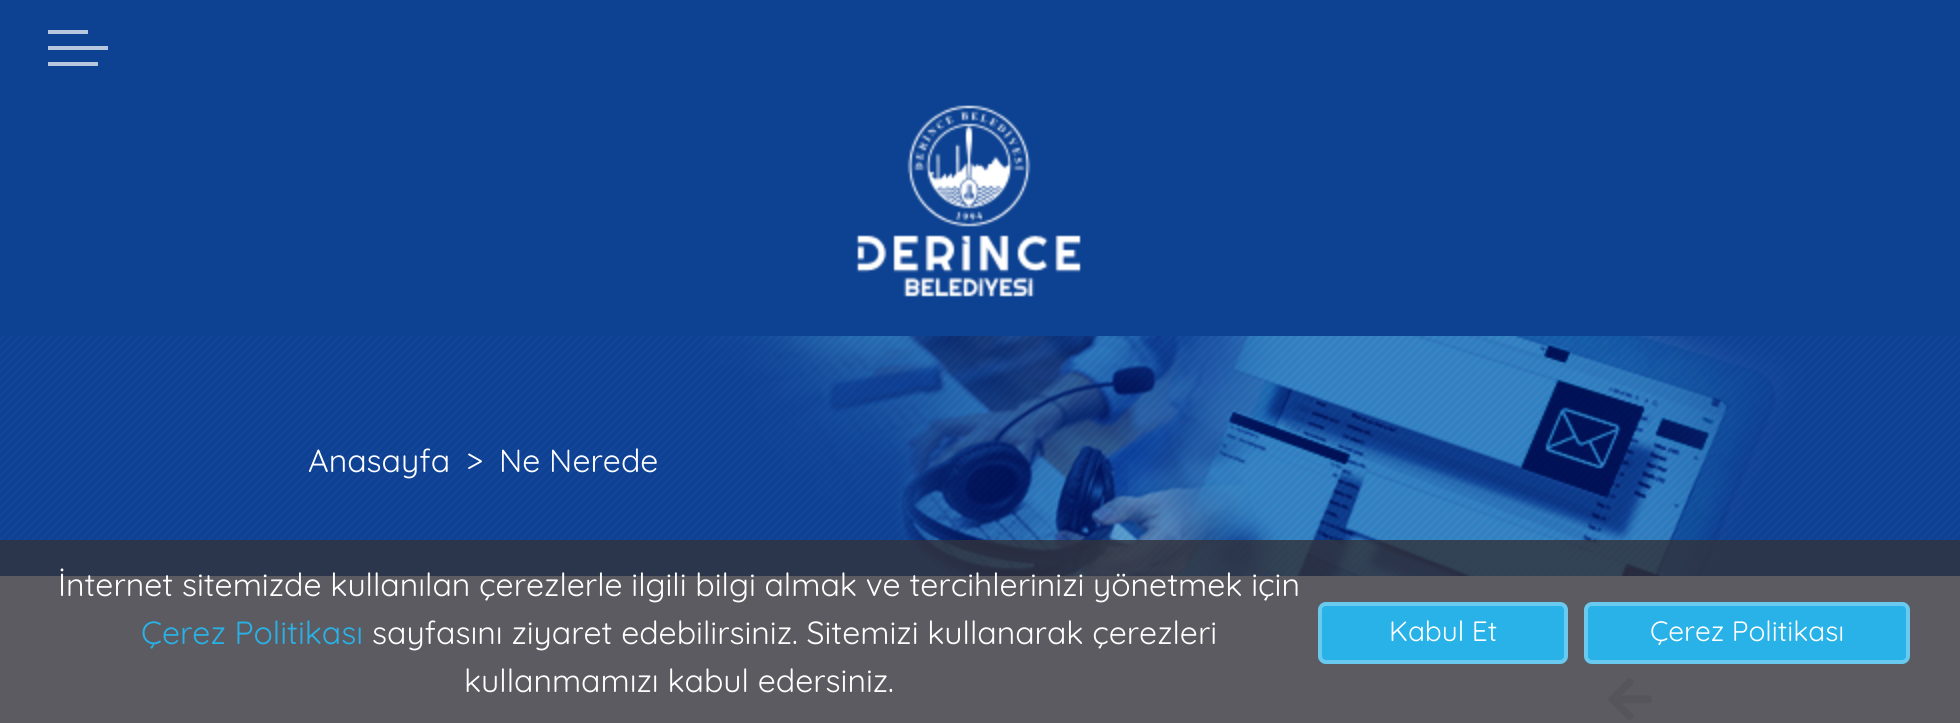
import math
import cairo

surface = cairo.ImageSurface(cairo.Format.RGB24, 1960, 723)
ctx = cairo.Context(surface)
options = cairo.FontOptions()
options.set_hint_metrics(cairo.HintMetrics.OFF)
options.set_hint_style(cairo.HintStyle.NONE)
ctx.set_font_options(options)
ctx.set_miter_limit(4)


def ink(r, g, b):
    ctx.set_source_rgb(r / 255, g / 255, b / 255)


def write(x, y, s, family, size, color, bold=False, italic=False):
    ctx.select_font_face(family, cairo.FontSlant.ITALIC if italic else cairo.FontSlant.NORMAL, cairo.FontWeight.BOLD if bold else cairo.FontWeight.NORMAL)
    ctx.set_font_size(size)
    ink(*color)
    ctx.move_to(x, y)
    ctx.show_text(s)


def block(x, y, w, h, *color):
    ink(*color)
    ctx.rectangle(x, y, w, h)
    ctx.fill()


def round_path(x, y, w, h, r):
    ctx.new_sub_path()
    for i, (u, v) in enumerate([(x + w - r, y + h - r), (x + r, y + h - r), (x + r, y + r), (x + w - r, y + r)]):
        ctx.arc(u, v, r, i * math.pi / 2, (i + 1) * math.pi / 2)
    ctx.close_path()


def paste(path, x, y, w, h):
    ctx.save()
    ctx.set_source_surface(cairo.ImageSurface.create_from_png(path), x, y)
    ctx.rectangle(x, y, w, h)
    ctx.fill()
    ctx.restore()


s1 = dict(family="Quicksand", size=32, color=(255, 255, 255))
s2 = dict(family="Quicksand", size=32, color=(41, 178, 231))
s3 = dict(family="Quicksand", size=28, color=(255, 255, 255))

ink(255, 255, 255)
ctx.paint()
block(0, 0, 1960, 336, 13, 66, 146)
block(48, 30, 40, 4, 182, 198, 222)
block(48, 46, 60, 4, 182, 198, 222)
block(48, 62, 50, 4, 182, 198, 222)
paste("pic1.png", 856, 105, 225, 192)
paste("pic2.png", 0, 336, 1960, 240)
write(308, 472, "Anasayfa", **s1)
write(466, 472, ">", **s1)
write(499, 472, "Ne Nerede", **s1)
paste("pic3.png", 1608, 678, 44, 43)
ctx.set_source_rgba(0.196, 0.196, 0.227, 0.8)
ctx.rectangle(0, 540, 1960, 183)
ctx.fill()
write(58, 596, "İnternet sitemizde kullanılan çerezlerle ilgili bilgi almak ve tercihlerinizi yönetmek için", **s1)
write(141, 644, "Çerez Politikası", **s2)
write(372, 644, "sayfasını ziyaret edebilirsiniz. Sitemizi kullanarak çerezleri", **s1)
write(464, 692, "kullanmamızı kabul edersiniz.", **s1)
ink(41, 178, 231)
round_path(1318, 602, 250, 62, 8)
ctx.fill()
round_path(1320, 604, 246, 58, 6)
ctx.set_source_rgba(1, 1, 1, 0.3)
ctx.set_line_width(4)
ctx.stroke()
write(1389, 641, "Kabul Et", **s3)
ink(41, 178, 231)
round_path(1584, 602, 326, 62, 8)
ctx.fill()
round_path(1586, 604, 322, 58, 6)
ctx.set_source_rgba(1, 1, 1, 0.3)
ctx.stroke()
write(1650, 641, "Çerez Politikası", **s3)
surface.write_to_png("screenshot.png")
